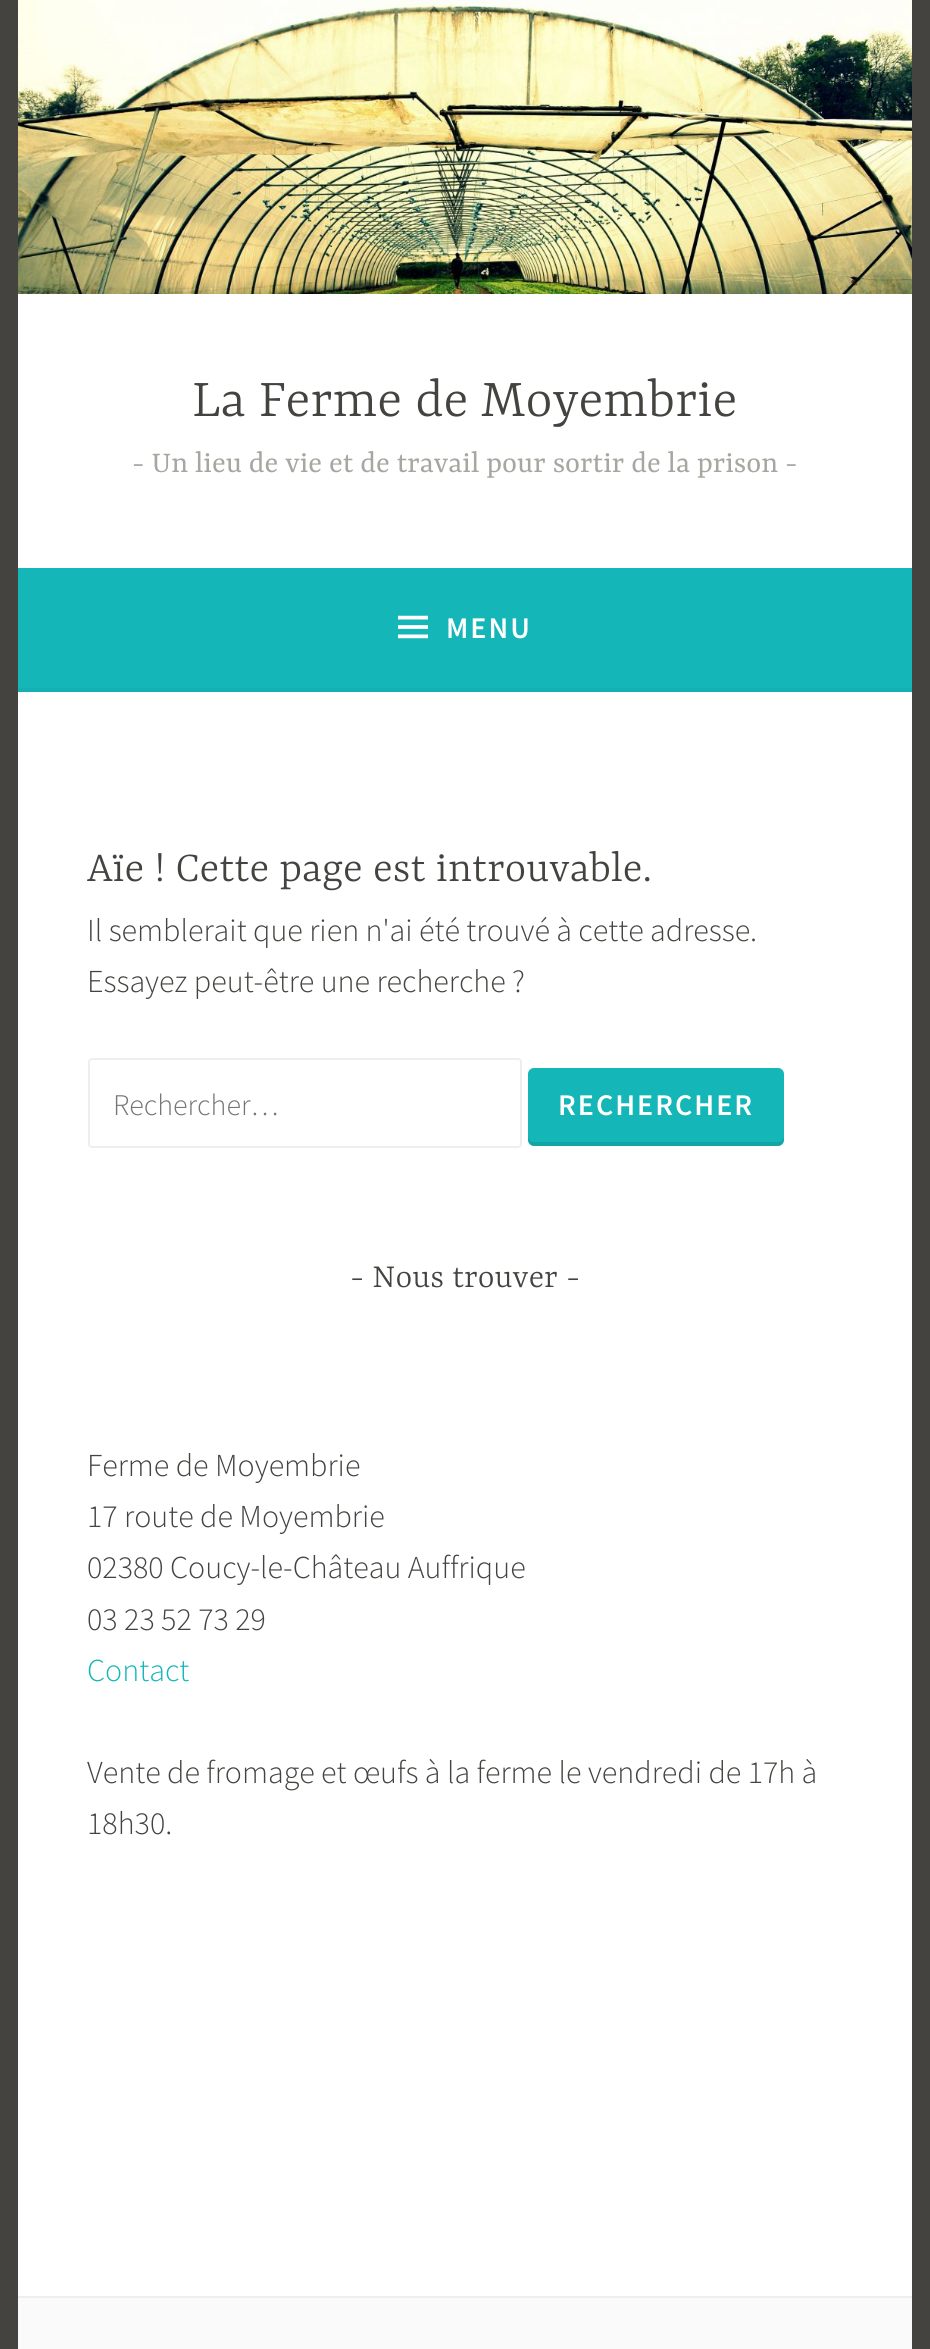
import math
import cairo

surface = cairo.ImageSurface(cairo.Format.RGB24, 930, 2349)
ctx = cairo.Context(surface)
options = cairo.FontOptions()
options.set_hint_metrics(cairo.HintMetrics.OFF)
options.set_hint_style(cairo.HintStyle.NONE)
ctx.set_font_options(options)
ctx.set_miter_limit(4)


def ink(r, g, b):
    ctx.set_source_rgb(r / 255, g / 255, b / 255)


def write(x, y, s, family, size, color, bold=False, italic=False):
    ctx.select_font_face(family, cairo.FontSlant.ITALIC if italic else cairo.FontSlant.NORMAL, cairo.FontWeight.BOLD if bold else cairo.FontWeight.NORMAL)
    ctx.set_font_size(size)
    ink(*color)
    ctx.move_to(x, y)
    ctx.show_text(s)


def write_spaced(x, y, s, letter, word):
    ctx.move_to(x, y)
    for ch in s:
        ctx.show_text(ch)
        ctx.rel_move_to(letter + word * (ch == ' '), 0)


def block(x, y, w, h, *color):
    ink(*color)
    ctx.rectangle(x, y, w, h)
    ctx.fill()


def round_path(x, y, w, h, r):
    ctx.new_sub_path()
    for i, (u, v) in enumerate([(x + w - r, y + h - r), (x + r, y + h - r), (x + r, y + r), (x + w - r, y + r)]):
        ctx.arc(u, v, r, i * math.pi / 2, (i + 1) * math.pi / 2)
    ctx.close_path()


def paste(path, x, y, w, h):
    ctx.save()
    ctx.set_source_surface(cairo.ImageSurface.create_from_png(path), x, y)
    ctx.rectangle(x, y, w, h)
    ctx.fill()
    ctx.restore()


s1 = dict(family="Yrsa Light", size=58, color=(68, 67, 64))
s2 = dict(family="Yrsa", size=32, color=(168, 166, 161))
s3 = dict(family="Yrsa Light", size=46, color=(68, 67, 64))
s4 = dict(family="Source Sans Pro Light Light", size=32, color=(68, 67, 64))
s5 = dict(family="Source Sans Pro Light Light", size=30, color=(117, 117, 117))
s6 = dict(family="Yrsa Light", size=36, color=(68, 67, 64))
s7 = dict(family="Source Sans Pro Light Light", size=32, color=(21, 182, 184))

ink(68, 67, 64)
ctx.paint()
paste("pic1.png", 18, 0, 894, 294)
block(18, 294, 894, 274, 255, 255, 255)
write(192, 416, "La Ferme de Moyembrie", **s1)
write(132, 472, "- Un lieu de vie et de travail pour sortir de la prison -", **s2)
block(18, 568, 894, 120, 21, 182, 184)
block(18, 688, 894, 4, 20, 177, 178)
paste("pic2.png", 398, 615, 30, 24)
ctx.select_font_face("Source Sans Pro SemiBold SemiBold")
ctx.set_font_size(30)
ink(255, 255, 255)
write_spaced(446, 638, "MENU", 2, 0)
block(18, 692, 894, 1604, 255, 255, 255)
write(87, 881, "Aïe ! Cette page est introuvable.", **s3)
write(87, 941, "Il semblerait que rien n'ai été trouvé à cette adresse.", **s4)
write(87, 992, "Essayez peut-être une recherche ?", **s4)
round_path(89, 1059, 432, 88, 3)
ink(238, 238, 238)
ctx.stroke()
write(113, 1115, "Rechercher…", **s5)
ink(21, 182, 184)
round_path(528, 1068, 256, 78, 6)
ctx.fill()
ctx.set_source_rgba(0, 0, 0, 0.1)
ctx.new_path()
ctx.move_to(528, 1136)
ctx.line_to(528, 1140)
ctx.curve_to(528, 1143, 531, 1146, 534, 1146)
ctx.line_to(778, 1146)
ctx.curve_to(781, 1146, 784, 1143, 784, 1140)
ctx.line_to(784, 1136)
ctx.curve_to(784, 1139, 781, 1142, 778, 1142)
ctx.line_to(534, 1142)
ctx.curve_to(531, 1142, 528, 1139, 528, 1136)
ctx.close_path()
ctx.fill()
ctx.select_font_face("Source Sans Pro SemiBold SemiBold")
ink(255, 255, 255)
write_spaced(558, 1115, "RECHERCHER", 2, 0)
write(350, 1287, "- Nous trouver -", **s6)
write(87, 1476, "Ferme de Moyembrie", **s4)
write(87, 1527, "17 route de Moyembrie", **s4)
write(87, 1578, "02380 Coucy-le-Château Auffrique", **s4)
write(87, 1630, "03 23 52 73 29", **s4)
write(87, 1681, "Contact", **s7)
write(87, 1783, "Vente de fromage et œufs à la ferme le vendredi de 17h à", **s4)
write(87, 1834, "18h30.", **s4)
block(18, 2298, 894, 51, 250, 250, 250)
block(18, 2296, 894, 2, 238, 238, 238)
surface.write_to_png("screenshot.png")
